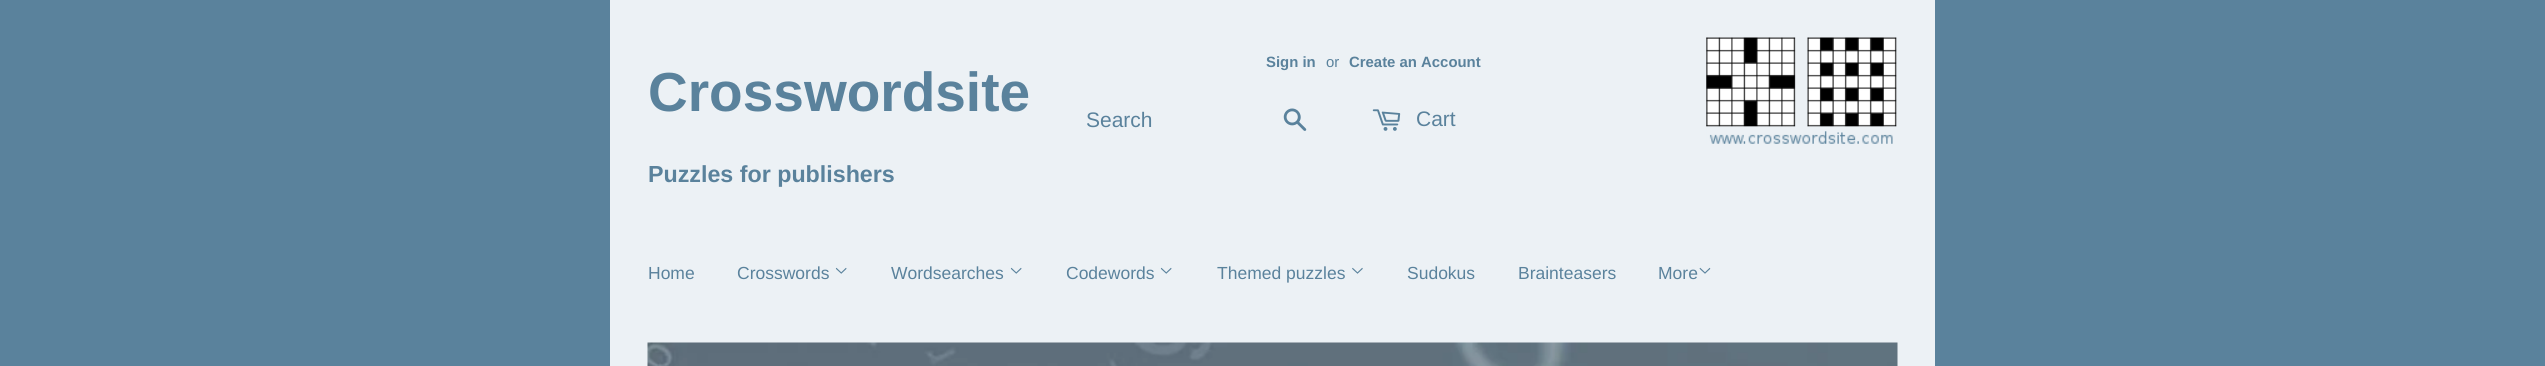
import math
import cairo

surface = cairo.ImageSurface(cairo.Format.RGB24, 2545, 366)
ctx = cairo.Context(surface)
options = cairo.FontOptions()
options.set_hint_metrics(cairo.HintMetrics.OFF)
options.set_hint_style(cairo.HintStyle.NONE)
ctx.set_font_options(options)
ctx.set_miter_limit(4)


def ink(r, g, b):
    ctx.set_source_rgb(r / 255, g / 255, b / 255)


def write(x, y, s, family, size, color, bold=False, italic=False):
    ctx.select_font_face(family, cairo.FontSlant.ITALIC if italic else cairo.FontSlant.NORMAL, cairo.FontWeight.BOLD if bold else cairo.FontWeight.NORMAL)
    ctx.set_font_size(size)
    ink(*color)
    ctx.move_to(x, y)
    ctx.show_text(s)


def block(x, y, w, h, *color):
    ink(*color)
    ctx.rectangle(x, y, w, h)
    ctx.fill()


def paste(path, x, y, w, h):
    ctx.save()
    ctx.set_source_surface(cairo.ImageSurface.create_from_png(path), x, y)
    ctx.rectangle(x, y, w, h)
    ctx.fill()
    ctx.restore()


s1 = dict(family="Liberation Sans", size=55, color=(90, 130, 156), bold=True)
s2 = dict(family="Liberation Sans", size=14.9, color=(90, 130, 156), bold=True)
s3 = dict(family="Liberation Sans", size=14.9, color=(90, 130, 156))
s4 = dict(family="Liberation Sans", size=21, color=(90, 130, 156))
s5 = dict(family="Liberation Sans", size=23.25, color=(90, 130, 156), bold=True)
s6 = dict(family="Liberation Sans", size=17.5, color=(90, 130, 156))

ink(90, 130, 156)
ctx.paint()
block(610, 0, 1325, 366, 236, 241, 245)
write(648, 111, "Crosswordsite", **s1)
write(1266, 67, "Sign in", **s2)
write(1326, 67, "or", **s3)
write(1349, 67, "Create an Account", **s2)
write(1086, 127, "Search", **s4)
paste("pic1.png", 1283, 108, 24, 23)
paste("pic2.png", 1372, 109, 29, 22)
write(1416, 126, "Cart", **s4)
paste("pic3.png", 1706, 37, 191, 107)
write(648, 182, "Puzzles for publishers", **s5)
write(648, 279, "Home", **s6)
write(737, 279, "Crosswords", **s6)
paste("pic4.png", 835, 267, 12, 7)
write(891, 279, "Wordsearches", **s6)
paste("pic4.png", 1010, 267, 12, 7)
write(1066, 279, "Codewords", **s6)
paste("pic4.png", 1160, 267, 12, 7)
write(1217, 279, "Themed puzzles", **s6)
paste("pic5.png", 1352, 267, 11, 7)
write(1407, 279, "Sudokus", **s6)
write(1518, 279, "Brainteasers", **s6)
write(1658, 279, "More", **s6)
paste("pic6.png", 1699, 267, 12, 7)
paste("pic7.png", 647, 342, 1251, 24)
surface.write_to_png("screenshot.png")
